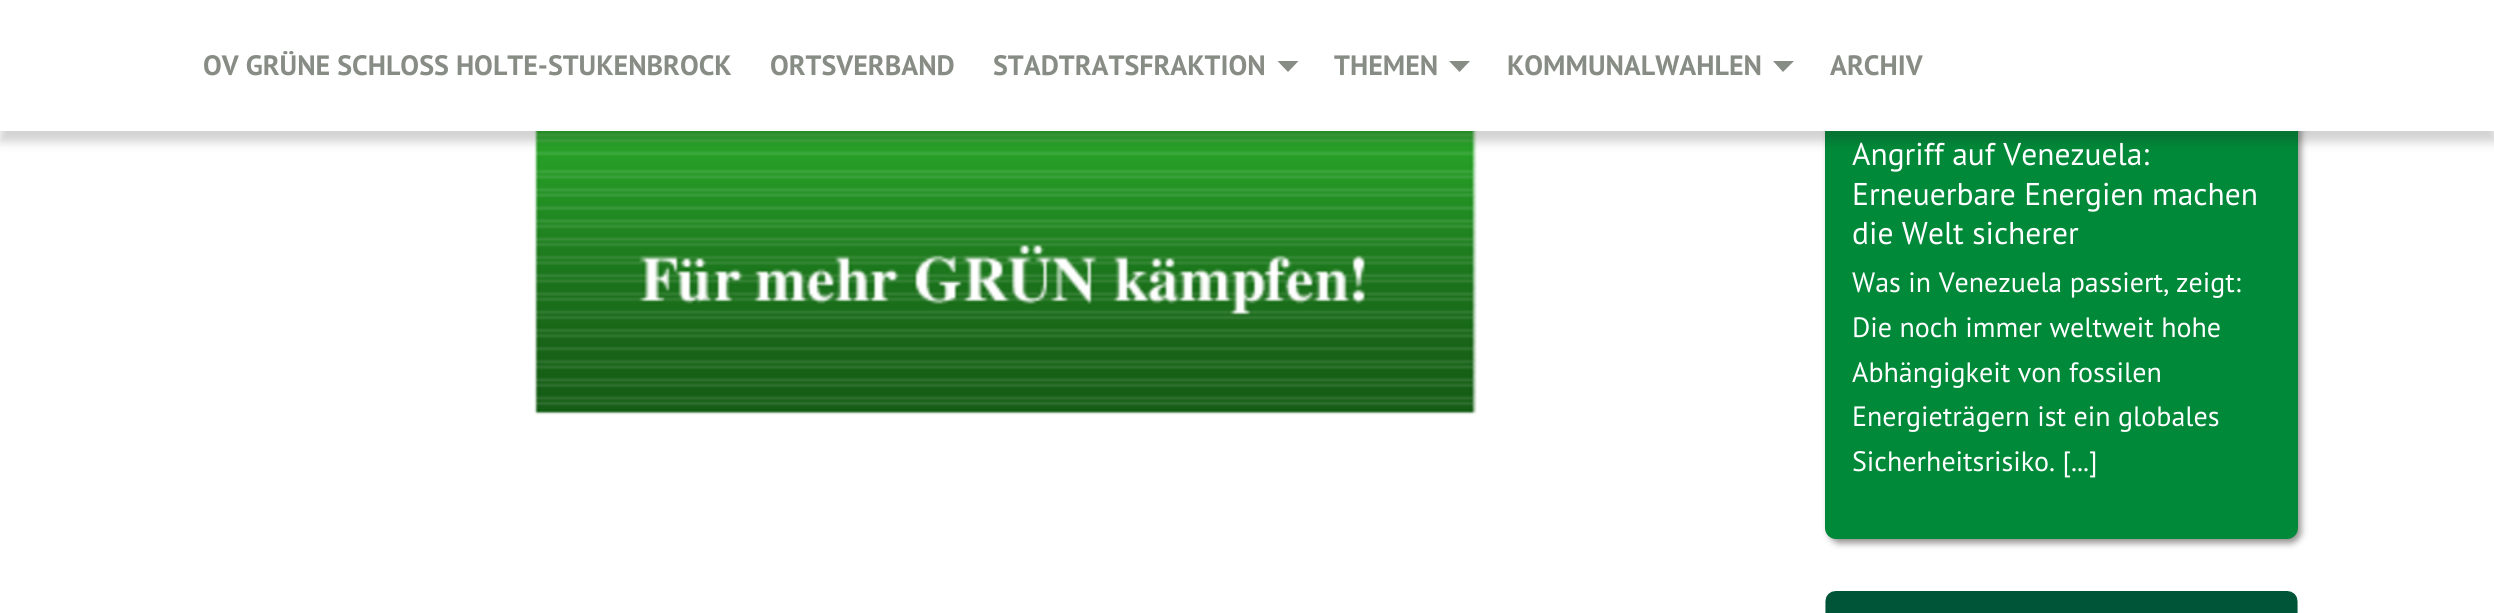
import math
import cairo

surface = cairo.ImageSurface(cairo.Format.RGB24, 2494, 613)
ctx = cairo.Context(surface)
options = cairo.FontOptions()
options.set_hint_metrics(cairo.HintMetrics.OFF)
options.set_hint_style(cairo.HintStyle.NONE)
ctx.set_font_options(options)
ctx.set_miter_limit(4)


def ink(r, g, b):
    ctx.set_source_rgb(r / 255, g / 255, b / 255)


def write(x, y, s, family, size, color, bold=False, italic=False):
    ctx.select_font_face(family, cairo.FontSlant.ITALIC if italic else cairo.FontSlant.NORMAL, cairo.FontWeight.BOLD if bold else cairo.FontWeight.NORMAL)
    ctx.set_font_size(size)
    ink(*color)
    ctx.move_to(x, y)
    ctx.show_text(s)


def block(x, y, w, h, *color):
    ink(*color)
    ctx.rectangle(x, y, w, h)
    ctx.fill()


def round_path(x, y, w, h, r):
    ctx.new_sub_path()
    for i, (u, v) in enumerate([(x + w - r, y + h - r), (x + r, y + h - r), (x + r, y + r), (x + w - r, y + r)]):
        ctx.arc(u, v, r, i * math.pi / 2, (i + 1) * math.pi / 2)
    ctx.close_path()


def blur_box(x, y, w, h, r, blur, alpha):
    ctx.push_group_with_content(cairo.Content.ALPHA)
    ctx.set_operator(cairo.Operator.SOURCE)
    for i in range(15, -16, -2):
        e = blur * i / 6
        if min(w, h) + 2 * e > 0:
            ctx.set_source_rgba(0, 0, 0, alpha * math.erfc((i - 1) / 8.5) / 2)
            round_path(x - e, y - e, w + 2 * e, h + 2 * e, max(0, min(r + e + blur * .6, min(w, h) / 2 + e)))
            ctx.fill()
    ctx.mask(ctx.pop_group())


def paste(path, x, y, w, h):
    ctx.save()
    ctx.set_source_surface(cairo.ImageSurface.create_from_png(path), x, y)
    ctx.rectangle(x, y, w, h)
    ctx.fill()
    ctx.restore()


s1 = dict(family="PT Sans", size=28, color=(135, 140, 133), bold=True)
s2 = dict(family="PT Sans", size=31.5, color=(255, 255, 255))
s3 = dict(family="PT Sans", size=28, color=(255, 255, 255))

ink(255, 255, 255)
ctx.paint()
paste("pic1.png", 534, 131, 943, 284)
ink(32, 29, 27)
blur_box(1829, -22, 472, 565, 11, 3.5, 0.5)
ink(0, 137, 57)
round_path(1825, -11, 473, 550, 11)
ctx.fill()
ink(32, 29, 27)
blur_box(0, 11, 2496, 131, 0, 5, 0.2)
block(0, 0, 2494, 131, 255, 255, 255)
write(203, 75, "OV GRÜNE SCHLOSS HOLTE-STUKENBROCK", **s1)
write(770, 75, "ORTSVERBAND", **s1)
write(993, 75, "STADTRATSFRAKTION", **s1)
ctx.new_path()
ctx.move_to(1277.5, 61)
ctx.line_to(1298.5, 61)
ctx.line_to(1288, 72)
ctx.close_path()
ctx.fill()
write(1334, 75, "THEMEN", **s1)
ctx.new_path()
ctx.move_to(1449, 61)
ctx.line_to(1470, 61)
ctx.line_to(1459.5, 72)
ctx.close_path()
ctx.fill()
write(1507, 75, "KOMMUNALWAHLEN", **s1)
ctx.new_path()
ctx.move_to(1773, 61)
ctx.line_to(1794, 61)
ctx.line_to(1783, 72)
ctx.close_path()
ctx.fill()
write(1830, 75, "ARCHIV", **s1)
write(1852, 165, "Angriff auf Venezuela:", **s2)
write(1852, 205, "Erneuerbare Energien machen", **s2)
write(1852, 244, "die Welt sicherer", **s2)
write(1852, 292, "Was in Venezuela passiert, zeigt:", **s3)
write(1852, 337, "Die noch immer weltweit hohe", **s3)
write(1852, 382, "Abhängigkeit von fossilen", **s3)
write(1852, 426, "Energieträgern ist ein globales", **s3)
write(1852, 471, "Sicherheitsrisiko. [...]", **s3)
paste("pic2.png", 1825, 591, 473, 22)
surface.write_to_png("screenshot.png")
